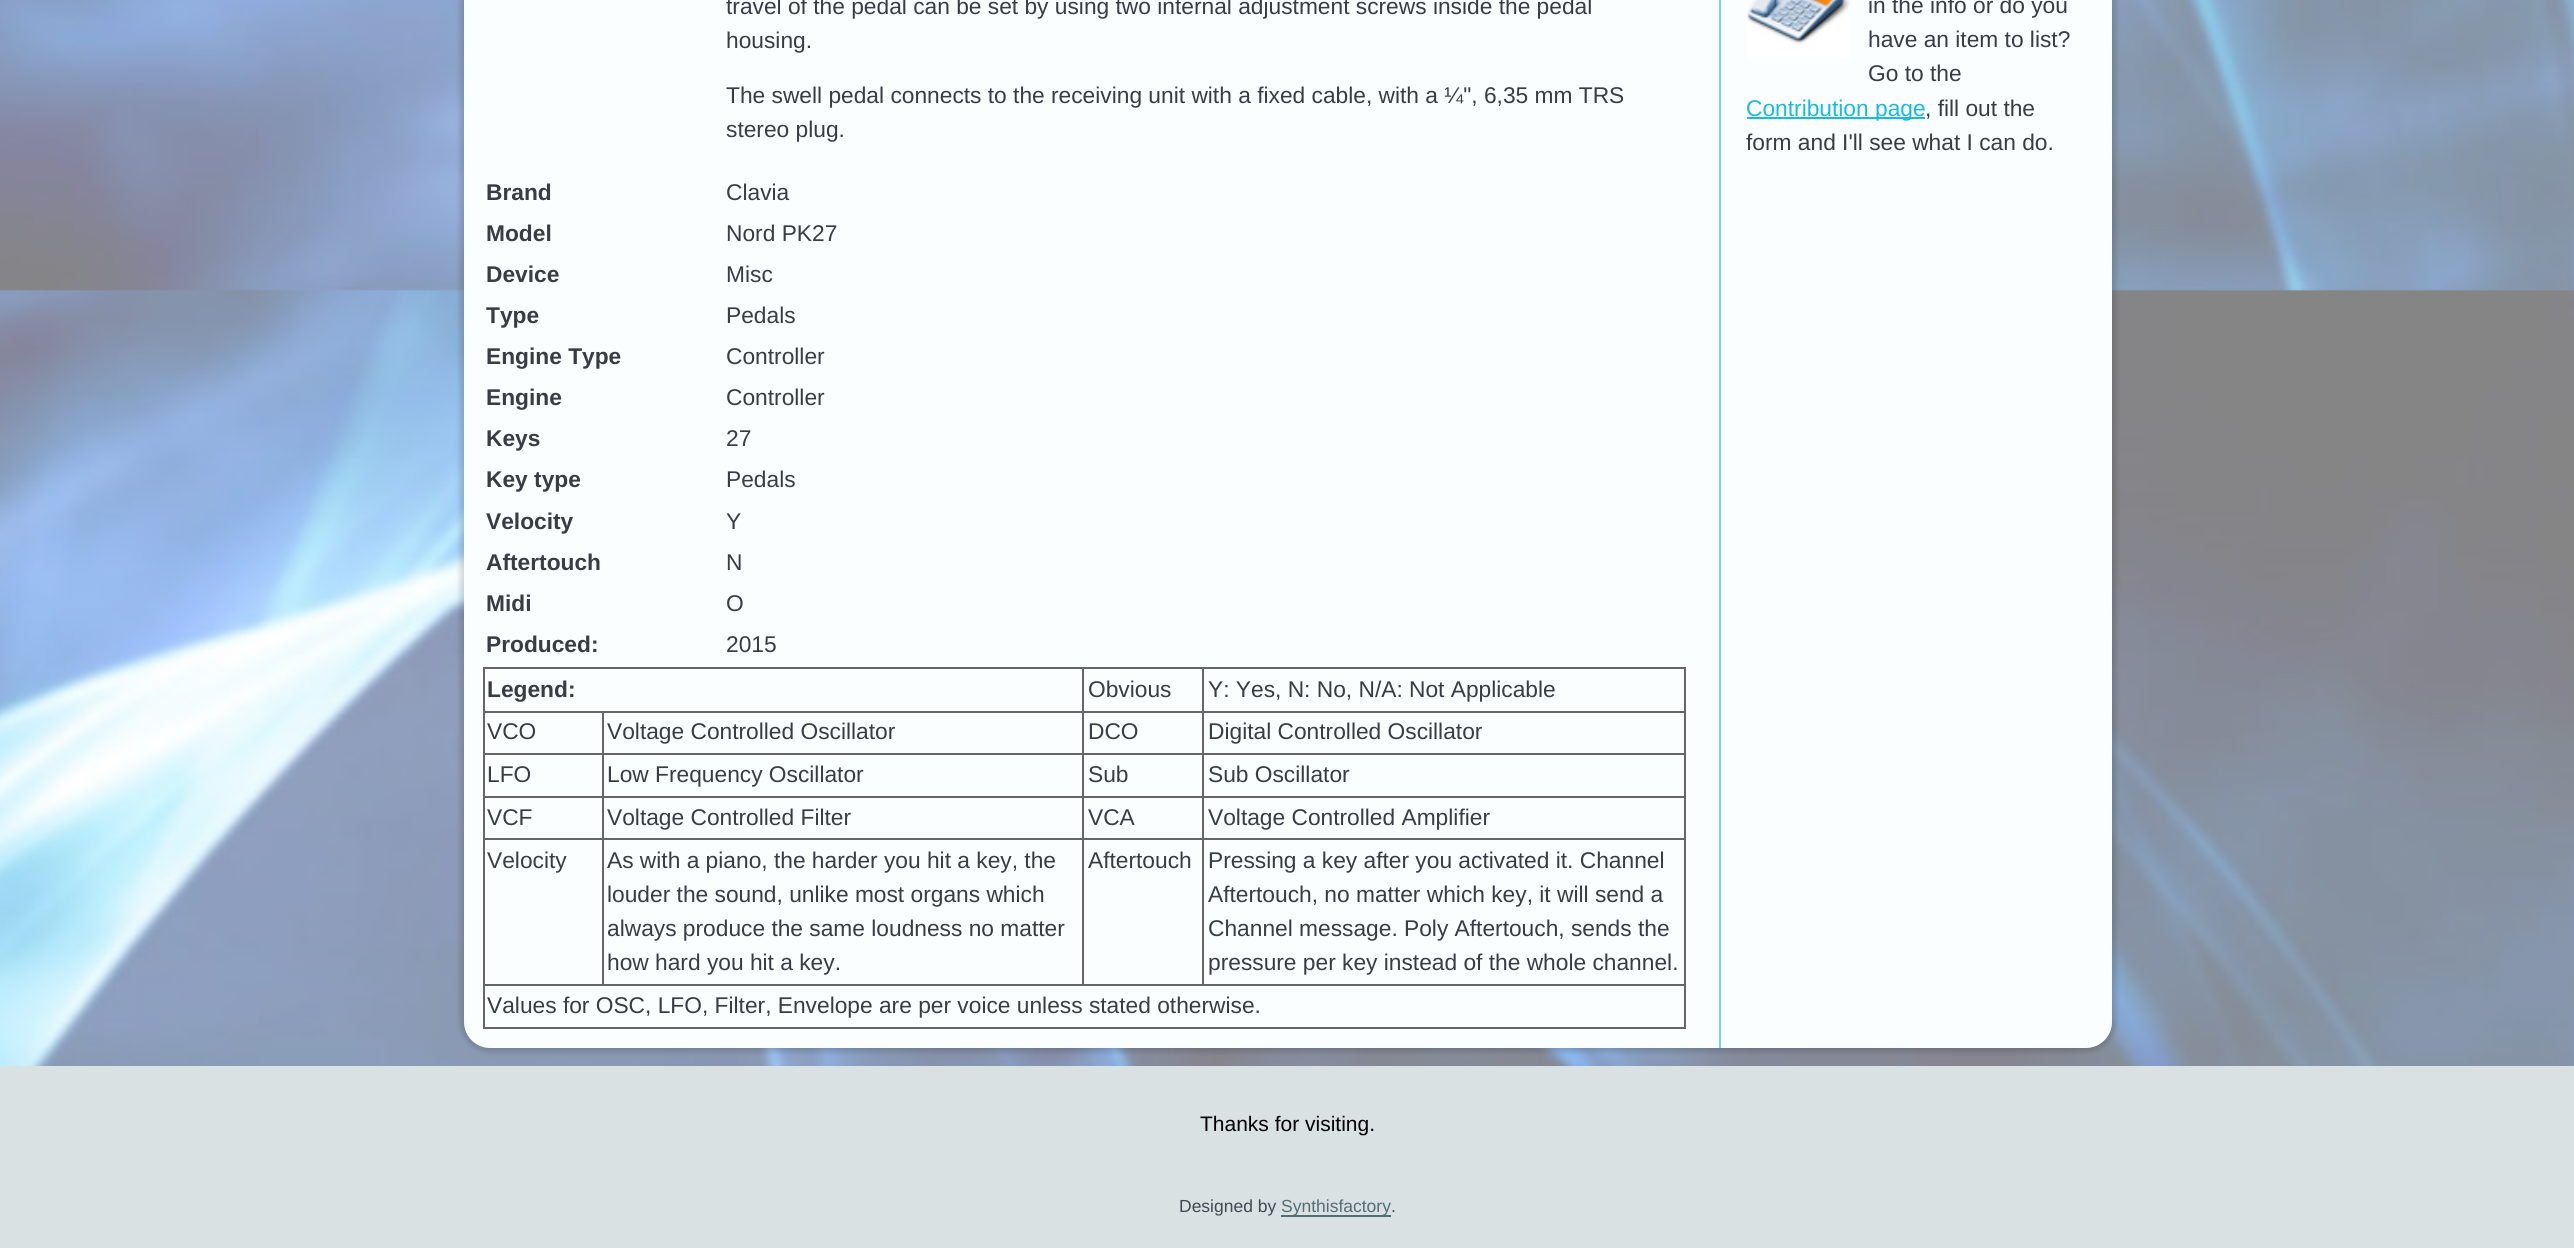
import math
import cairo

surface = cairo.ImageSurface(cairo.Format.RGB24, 2574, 1248)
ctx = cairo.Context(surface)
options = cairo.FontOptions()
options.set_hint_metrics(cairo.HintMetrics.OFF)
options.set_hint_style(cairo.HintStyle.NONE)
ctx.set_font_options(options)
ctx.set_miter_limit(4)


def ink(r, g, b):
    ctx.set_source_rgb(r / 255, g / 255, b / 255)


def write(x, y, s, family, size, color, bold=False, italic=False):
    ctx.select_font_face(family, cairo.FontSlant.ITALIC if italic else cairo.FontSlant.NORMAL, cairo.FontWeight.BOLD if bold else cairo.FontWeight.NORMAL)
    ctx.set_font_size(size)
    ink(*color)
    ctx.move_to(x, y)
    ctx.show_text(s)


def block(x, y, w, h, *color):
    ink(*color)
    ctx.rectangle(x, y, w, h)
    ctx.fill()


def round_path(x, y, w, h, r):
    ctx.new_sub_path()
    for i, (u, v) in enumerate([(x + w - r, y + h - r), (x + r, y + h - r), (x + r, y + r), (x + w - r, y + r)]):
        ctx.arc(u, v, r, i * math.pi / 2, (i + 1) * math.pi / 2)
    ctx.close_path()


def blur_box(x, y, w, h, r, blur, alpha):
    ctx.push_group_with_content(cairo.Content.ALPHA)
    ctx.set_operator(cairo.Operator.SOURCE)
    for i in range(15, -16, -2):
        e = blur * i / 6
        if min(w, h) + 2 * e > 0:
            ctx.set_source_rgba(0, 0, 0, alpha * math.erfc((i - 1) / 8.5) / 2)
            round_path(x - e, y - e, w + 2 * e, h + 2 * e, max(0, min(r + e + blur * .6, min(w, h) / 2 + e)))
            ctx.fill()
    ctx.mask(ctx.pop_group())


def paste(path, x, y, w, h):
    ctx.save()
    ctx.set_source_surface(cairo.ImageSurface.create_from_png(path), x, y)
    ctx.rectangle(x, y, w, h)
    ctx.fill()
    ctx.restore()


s1 = dict(family="Liberation Sans", size=22.75, color=(56, 60, 67))
s2 = dict(family="Liberation Sans", size=22.75, color=(56, 60, 67), bold=True)
s3 = dict(family="Liberation Sans", size=22.75, color=(24, 186, 226))
s4 = dict(family="Liberation Sans", size=21, color=(0, 0, 0))
s5 = dict(family="Liberation Sans", size=17.5, color=(67, 72, 81))
s6 = dict(family="Liberation Sans", size=17.5, color=(84, 108, 115))

ink(255, 255, 255)
ctx.paint()
paste("pic1.png", 0, 0, 2574, 1066)
ink(0, 0, 0)
blur_box(460, -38, 1656, 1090, 30, 2.5, 0.15)
ink(250, 254, 255)
round_path(464, -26, 1648, 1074, 26)
ctx.fill()
write(726, 14, "travel of the pedal can be set by using two internal adjustment screws inside the pedal", **s1)
write(726, 48, "housing.", **s1)
write(726, 103, "The swell pedal connects to the receiving unit with a fixed cable, with a ¼\", 6,35 mm TRS", **s1)
write(726, 137, "stereo plug.", **s1)
write(486, 200, "Brand", **s2)
write(726, 200, "Clavia", **s1)
write(486, 241, "Model", **s2)
write(726, 241, "Nord PK27", **s1)
write(486, 282, "Device", **s2)
write(726, 282, "Misc", **s1)
write(486, 323, "Type", **s2)
write(726, 323, "Pedals", **s1)
write(486, 364, "Engine Type", **s2)
write(726, 364, "Controller", **s1)
write(486, 405, "Engine", **s2)
write(726, 405, "Controller", **s1)
write(486, 446, "Keys", **s2)
write(726, 446, "27", **s1)
write(486, 487, "Key type", **s2)
write(726, 487, "Pedals", **s1)
write(486, 529, "Velocity", **s2)
write(726, 529, "Y", **s1)
write(486, 570, "Aftertouch", **s2)
write(726, 570, "N", **s1)
write(486, 611, "Midi", **s2)
write(726, 611, "O", **s1)
write(486, 652, "Produced:", **s2)
write(726, 652, "2015", **s1)
block(483, 667, 1202, 2, 102, 102, 102)
block(1684, 667, 2, 362, 102, 102, 102)
block(483, 1027, 1202, 2, 102, 102, 102)
block(483, 667, 2, 362, 102, 102, 102)
write(487, 697, "Legend:", **s2)
block(1202, 711, 483, 2, 102, 102, 102)
block(1202, 753, 483, 2, 102, 102, 102)
block(1202, 796, 483, 2, 102, 102, 102)
block(1202, 838, 483, 2, 102, 102, 102)
block(483, 984, 1202, 2, 102, 102, 102)
block(1202, 838, 2, 147, 102, 102, 102)
block(1082, 838, 122, 2, 102, 102, 102)
block(1202, 796, 2, 44, 102, 102, 102)
block(1082, 796, 122, 2, 102, 102, 102)
block(1202, 753, 2, 45, 102, 102, 102)
block(1082, 753, 122, 2, 102, 102, 102)
block(1202, 711, 2, 43, 102, 102, 102)
block(1082, 711, 122, 2, 102, 102, 102)
block(1082, 838, 2, 147, 102, 102, 102)
block(602, 838, 481, 2, 102, 102, 102)
block(1082, 796, 2, 44, 102, 102, 102)
block(602, 796, 481, 2, 102, 102, 102)
block(1082, 753, 2, 45, 102, 102, 102)
block(602, 753, 481, 2, 102, 102, 102)
block(1082, 711, 2, 43, 102, 102, 102)
block(602, 711, 481, 2, 102, 102, 102)
block(1082, 667, 2, 45, 102, 102, 102)
write(1088, 697, "Obvious", **s1)
block(1202, 667, 2, 45, 102, 102, 102)
write(1208, 697, "Y: Yes, N: No, N/A: Not Applicable", **s1)
block(602, 838, 2, 147, 102, 102, 102)
block(483, 838, 121, 2, 102, 102, 102)
block(602, 796, 2, 44, 102, 102, 102)
block(483, 796, 121, 2, 102, 102, 102)
block(602, 753, 2, 45, 102, 102, 102)
block(483, 753, 121, 2, 102, 102, 102)
block(602, 711, 2, 43, 102, 102, 102)
block(483, 711, 121, 2, 102, 102, 102)
write(487, 739, "VCO", **s1)
write(607, 739, "Voltage Controlled Oscillator", **s1)
write(1088, 739, "DCO", **s1)
write(1208, 739, "Digital Controlled Oscillator", **s1)
write(487, 782, "LFO", **s1)
write(607, 782, "Low Frequency Oscillator", **s1)
write(1088, 782, "Sub", **s1)
write(1208, 782, "Sub Oscillator", **s1)
write(487, 825, "VCF", **s1)
write(607, 825, "Voltage Controlled Filter", **s1)
write(1088, 825, "VCA", **s1)
write(1208, 825, "Voltage Controlled Amplifier", **s1)
write(487, 868, "Velocity", **s1)
write(607, 868, "As with a piano, the harder you hit a key, the", **s1)
write(607, 902, "louder the sound, unlike most organs which", **s1)
write(607, 936, "always produce the same loudness no matter", **s1)
write(607, 970, "how hard you hit a key.", **s1)
write(1088, 868, "Aftertouch", **s1)
write(1208, 868, "Pressing a key after you activated it. Channel", **s1)
write(1208, 902, "Aftertouch, no matter which key, it will send a", **s1)
write(1208, 936, "Channel message. Poly Aftertouch, sends the", **s1)
write(1208, 970, "pressure per key instead of the whole channel.", **s1)
write(487, 1013, "Values for OSC, LFO, Filter, Envelope are per voice unless stated otherwise.", **s1)
block(1719, 0, 2, 1048, 117, 216, 240)
write(1868, 13, "in the info or do you", **s1)
write(1868, 47, "have an item to list?", **s1)
write(1868, 81, "Go to the", **s1)
block(1747, 117, 178, 2, 24, 186, 226)
write(1746, 116, "Contribution page", **s3)
write(1925, 116, ", fill out the", **s1)
write(1746, 150, "form and I'll see what I can do.", **s1)
paste("pic2.png", 1746, 0, 105, 59)
block(0, 1066, 2574, 182, 217, 225, 227)
write(1200, 1131, "Thanks for visiting.", **s4)
write(1179, 1212, "Designed by", **s5)
block(1281, 1215, 110, 2, 84, 108, 115)
write(1281, 1212, "Synthisfactory", **s6)
write(1391, 1212, ".", **s5)
surface.write_to_png("screenshot.png")
